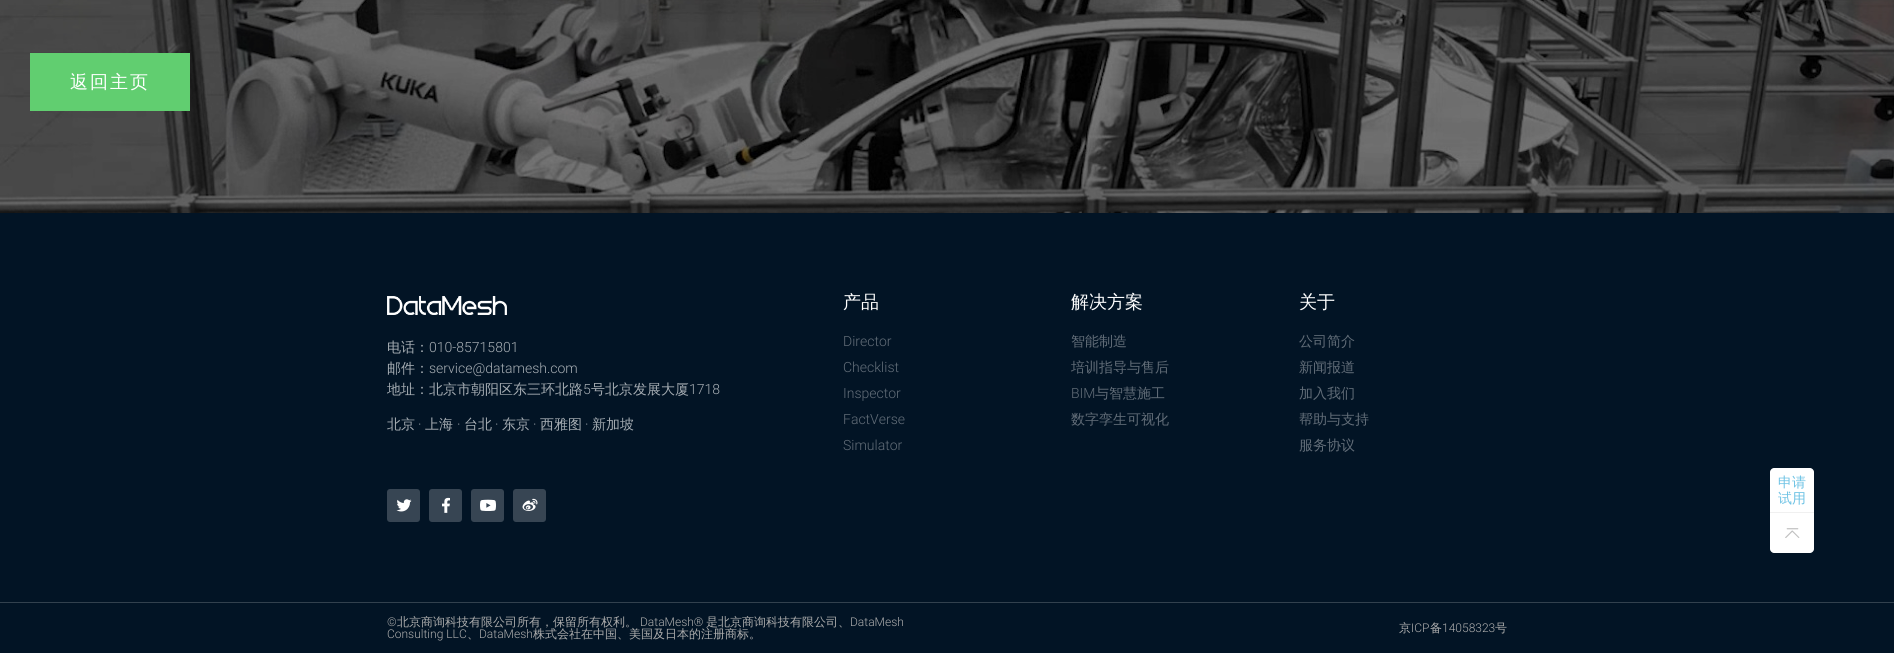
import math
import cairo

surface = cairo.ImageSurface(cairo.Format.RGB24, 1894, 653)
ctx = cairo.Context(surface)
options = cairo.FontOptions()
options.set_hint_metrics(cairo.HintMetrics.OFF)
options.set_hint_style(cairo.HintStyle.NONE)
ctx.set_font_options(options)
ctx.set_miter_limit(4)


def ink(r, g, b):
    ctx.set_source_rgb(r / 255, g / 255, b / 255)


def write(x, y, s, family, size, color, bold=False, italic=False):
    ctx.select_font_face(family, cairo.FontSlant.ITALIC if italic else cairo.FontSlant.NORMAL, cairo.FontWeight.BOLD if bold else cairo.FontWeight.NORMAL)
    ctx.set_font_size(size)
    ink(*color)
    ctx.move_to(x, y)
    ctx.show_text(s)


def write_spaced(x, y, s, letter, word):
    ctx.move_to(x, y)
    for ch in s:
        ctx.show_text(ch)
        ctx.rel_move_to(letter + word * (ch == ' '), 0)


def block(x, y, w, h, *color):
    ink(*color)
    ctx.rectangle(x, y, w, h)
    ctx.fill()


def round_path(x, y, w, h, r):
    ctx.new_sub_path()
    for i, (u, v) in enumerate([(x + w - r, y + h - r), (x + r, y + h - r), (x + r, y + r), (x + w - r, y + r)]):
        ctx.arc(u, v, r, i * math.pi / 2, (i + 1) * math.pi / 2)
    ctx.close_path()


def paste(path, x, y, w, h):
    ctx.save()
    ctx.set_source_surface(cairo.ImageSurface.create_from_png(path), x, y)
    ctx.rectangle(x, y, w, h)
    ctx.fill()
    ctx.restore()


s1 = dict(family="WenQuanYi Zen Hei Medium", size=14, color=(166, 173, 179))
s2 = dict(family="Roboto Light", size=14, color=(166, 173, 179))
s3 = dict(family="WenQuanYi Zen Hei Medium", size=18, color=(255, 255, 255))
s4 = dict(family="Roboto Light", size=14, color=(98, 109, 120))
s5 = dict(family="WenQuanYi Zen Hei Medium", size=14, color=(98, 109, 120))
s6 = dict(family="Roboto Light", size=12, color=(173, 173, 173))
s7 = dict(family="WenQuanYi Zen Hei Medium", size=12, color=(173, 173, 173))
s8 = dict(family="WenQuanYi Zen Hei Medium", size=14, color=(109, 194, 228))

ink(255, 255, 255)
ctx.paint()
paste("pic1.png", 0, 0, 1894, 213)
block(30, 53, 160, 58, 97, 206, 112)
ctx.select_font_face("WenQuanYi Zen Hei Medium")
ctx.set_font_size(18)
ink(255, 255, 255)
write_spaced(70, 88, "返回主页", 2, 0)
block(0, 213, 1894, 389, 2, 20, 37)
paste("pic2.png", 387, 296, 120, 19)
write(387, 352, "电话：", **s1)
write(429, 352, "010-85715801", **s2)
write(387, 373, "邮件：", **s1)
write(429, 373, "service@datamesh.com", **s2)
write(387, 394, "地址：北京市朝阳区东三环北路", **s1)
write(583, 394, "5", **s2)
write(591, 394, "号北京发展大厦", **s1)
write(689, 394, "1718", **s2)
write(387, 429, "北京", **s1)
write(418, 429, "·", **s2)
write(425, 429, "上海", **s1)
write(457, 429, "·", **s2)
write(464, 429, "台北", **s1)
write(495, 429, "·", **s2)
write(502, 429, "东京", **s1)
write(533, 429, "·", **s2)
write(540, 429, "西雅图", **s1)
write(585, 429, "·", **s2)
write(592, 429, "新加坡", **s1)
ink(55, 69, 83)
round_path(387, 489, 33, 33, 3)
ctx.fill()
paste("pic3.png", 396, 499, 16, 13)
round_path(429, 489, 33, 33, 3)
ctx.fill()
paste("pic4.png", 442, 497, 8, 16)
round_path(471, 489, 33, 33, 3)
ctx.fill()
paste("pic5.png", 480, 499, 16, 12)
round_path(513, 489, 33, 33, 3)
ctx.fill()
paste("pic6.png", 522, 498, 16, 13)
write(843, 308, "产品", **s3)
write(843, 346, "Director", **s4)
write(843, 372, "Checklist", **s4)
write(843, 398, "Inspector", **s4)
write(843, 424, "FactVerse", **s4)
write(843, 450, "Simulator", **s4)
write(1071, 308, "解决方案", **s3)
write(1071, 346, "智能制造", **s5)
write(1071, 372, "培训指导与售后", **s5)
write(1071, 398, "BIM", **s4)
write(1095, 398, "与智慧施工", **s5)
write(1071, 424, "数字孪生可视化", **s5)
write(1299, 308, "关于", **s3)
write(1299, 346, "公司简介", **s5)
write(1299, 372, "新闻报道", **s5)
write(1299, 398, "加入我们", **s5)
write(1299, 424, "帮助与支持", **s5)
write(1299, 450, "服务协议", **s5)
block(0, 603, 1894, 50, 2, 20, 37)
block(0, 602, 1894, 1, 50, 65, 78)
write(387, 626, "©", **s6)
write(397, 626, "北京商询科技有限公司所有，保留所有权利。", **s7)
write(640, 626, "DataMesh®", **s6)
write(706, 626, "是北京商询科技有限公司、", **s7)
write(850, 626, "DataMesh", **s6)
write(387, 638, "Consulting LLC", **s6)
write(467, 638, "、", **s7)
write(479, 638, "DataMesh", **s6)
write(533, 638, "株式会社在中国、美国及日本的注册商标。", **s7)
write(1399, 632, "京", **s7)
write(1411, 632, "ICP", **s6)
write(1430, 632, "备", **s7)
write(1442, 632, "14058323", **s6)
write(1495, 632, "号", **s7)
ink(255, 255, 255)
ctx.new_path()
ctx.move_to(1774, 468)
ctx.line_to(1810, 468)
ctx.curve_to(1812, 468, 1814, 470, 1814, 472)
ctx.line_to(1814, 512)
ctx.line_to(1770, 512)
ctx.line_to(1770, 472)
ctx.curve_to(1770, 470, 1772, 468, 1774, 468)
ctx.close_path()
ctx.fill()
write(1778, 487, "申请", **s8)
write(1778, 503, "试用", **s8)
block(1770, 512, 44, 1, 240, 240, 240)
ink(255, 255, 255)
ctx.new_path()
ctx.move_to(1770, 513)
ctx.line_to(1814, 513)
ctx.line_to(1814, 549)
ctx.curve_to(1814, 551, 1812, 553, 1810, 553)
ctx.line_to(1774, 553)
ctx.curve_to(1772, 553, 1770, 551, 1770, 549)
ctx.close_path()
ctx.fill()
paste("pic7.png", 1785, 528, 15, 10)
surface.write_to_png("screenshot.png")
